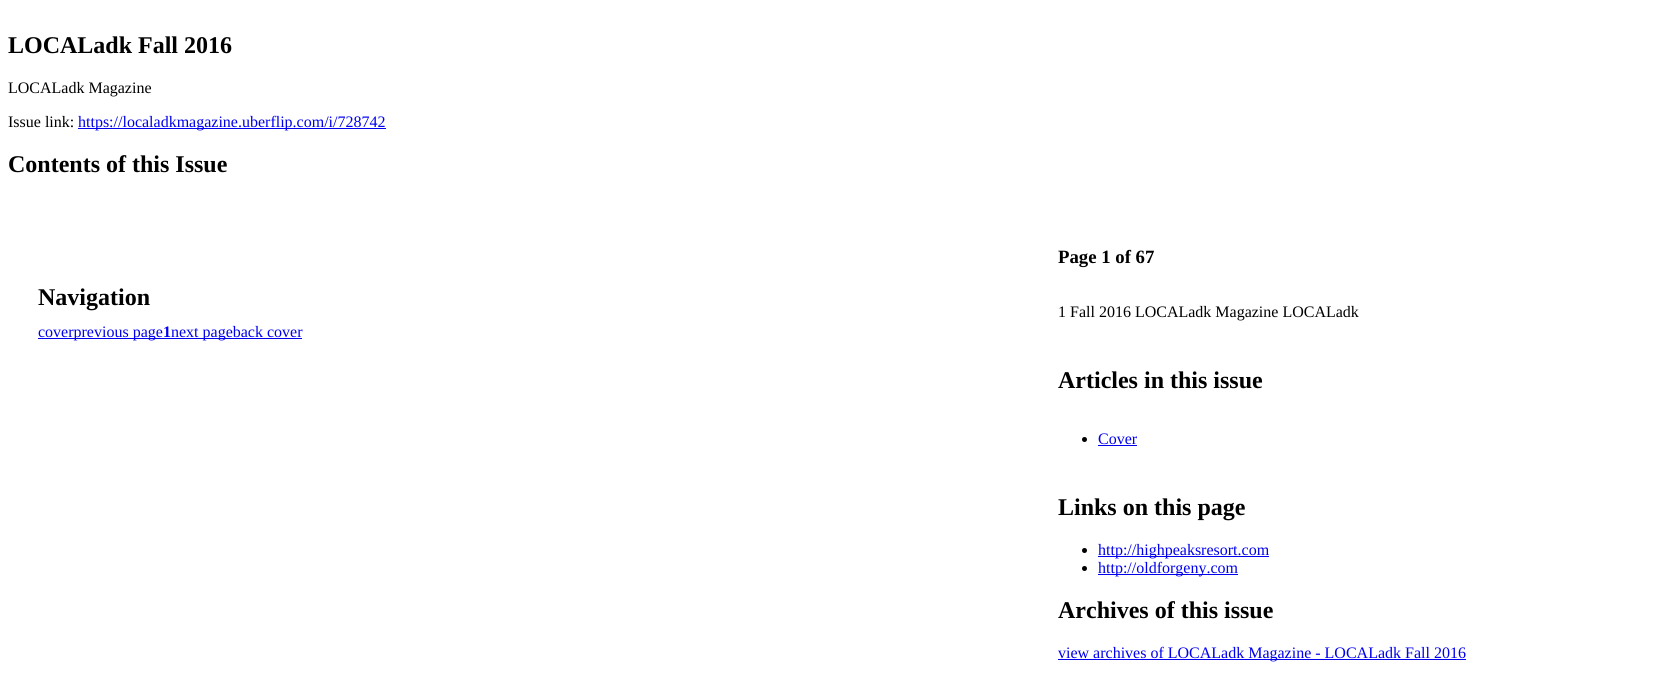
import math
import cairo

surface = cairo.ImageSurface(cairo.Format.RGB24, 1653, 692)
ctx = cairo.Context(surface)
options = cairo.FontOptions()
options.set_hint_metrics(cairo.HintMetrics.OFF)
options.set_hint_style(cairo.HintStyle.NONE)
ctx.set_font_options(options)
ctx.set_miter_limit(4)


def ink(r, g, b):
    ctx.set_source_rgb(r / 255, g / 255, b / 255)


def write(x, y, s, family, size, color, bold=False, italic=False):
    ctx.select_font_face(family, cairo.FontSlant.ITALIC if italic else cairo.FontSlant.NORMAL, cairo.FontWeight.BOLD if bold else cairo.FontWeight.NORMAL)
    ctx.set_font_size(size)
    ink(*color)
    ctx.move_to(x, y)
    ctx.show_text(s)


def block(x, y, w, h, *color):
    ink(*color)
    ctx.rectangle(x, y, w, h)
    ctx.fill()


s1 = dict(family="Liberation Serif", size=24, color=(0, 0, 0), bold=True)
s2 = dict(family="Liberation Serif", size=16, color=(0, 0, 0))
s3 = dict(family="Liberation Serif", size=16, color=(0, 0, 238))
s4 = dict(family="Liberation Serif", size=16, color=(0, 0, 238), bold=True)
s5 = dict(family="Liberation Serif", size=18.75, color=(0, 0, 0), bold=True)

ink(255, 255, 255)
ctx.paint()
write(8, 53, "LOCALadk Fall 2016", **s1)
write(8, 93, "LOCALadk Magazine", **s2)
write(8, 127, "Issue link:", **s2)
block(78, 128, 308, 1, 0, 0, 238)
write(78, 127, "https://localadkmagazine.uberflip.com/i/728742", **s3)
write(8, 172, "Contents of this Issue", **s1)
write(38, 305, "Navigation", **s1)
block(38, 338, 264, 1, 0, 0, 238)
write(38, 337, "coverprevious page", **s3)
write(163, 337, "1", **s4)
write(171, 337, "next pageback cover", **s3)
write(1058, 263, "Page 1 of 67", **s5)
write(1058, 317, "1 Fall 2016 LOCALadk Magazine LOCALadk", **s2)
write(1058, 388, "Articles in this issue", **s1)
ctx.new_path()
ctx.arc(1084.5, 439.5, 2.5, 0, 2 * math.pi)
ctx.fill()
write(1098, 444, "Cover", **s3)
block(1098, 445, 39, 1, 0, 0, 238)
write(1058, 515, "Links on this page", **s1)
ctx.new_path()
ctx.arc(1084.5, 550.5, 2.5, 0, 2 * math.pi)
ctx.fill()
block(1098, 556, 171, 1, 0, 0, 238)
write(1098, 555, "http://highpeaksresort.com", **s3)
ink(0, 0, 0)
ctx.new_path()
ctx.arc(1084.5, 568.5, 2.5, 0, 2 * math.pi)
ctx.fill()
block(1098, 574, 140, 1, 0, 0, 238)
write(1098, 573, "http://oldforgeny.com", **s3)
write(1058, 618, "Archives of this issue", **s1)
block(1058, 659, 408, 1, 0, 0, 238)
write(1058, 658, "view archives of LOCALadk Magazine - LOCALadk Fall 2016", **s3)
surface.write_to_png("screenshot.png")
